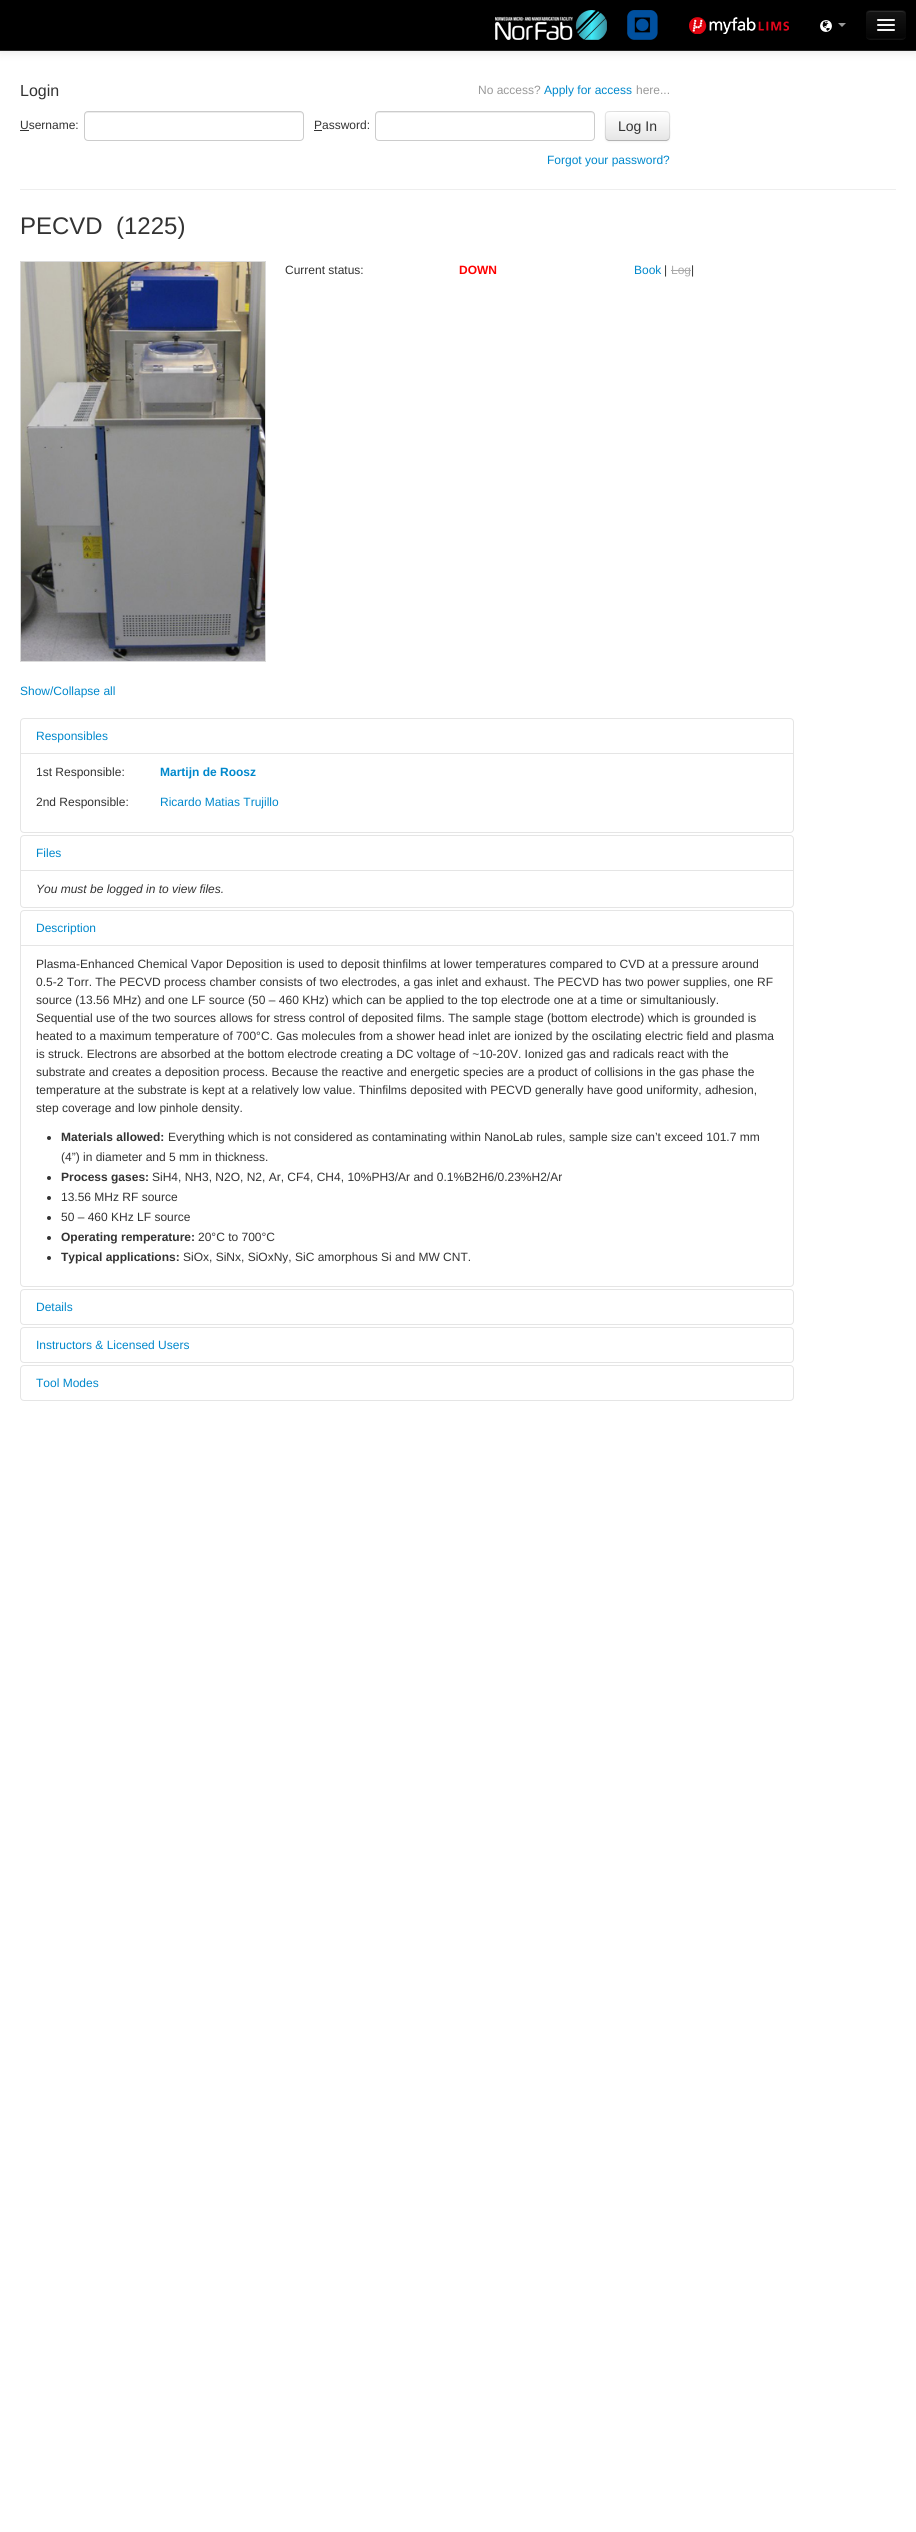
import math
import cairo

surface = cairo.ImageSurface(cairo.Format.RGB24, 916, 2532)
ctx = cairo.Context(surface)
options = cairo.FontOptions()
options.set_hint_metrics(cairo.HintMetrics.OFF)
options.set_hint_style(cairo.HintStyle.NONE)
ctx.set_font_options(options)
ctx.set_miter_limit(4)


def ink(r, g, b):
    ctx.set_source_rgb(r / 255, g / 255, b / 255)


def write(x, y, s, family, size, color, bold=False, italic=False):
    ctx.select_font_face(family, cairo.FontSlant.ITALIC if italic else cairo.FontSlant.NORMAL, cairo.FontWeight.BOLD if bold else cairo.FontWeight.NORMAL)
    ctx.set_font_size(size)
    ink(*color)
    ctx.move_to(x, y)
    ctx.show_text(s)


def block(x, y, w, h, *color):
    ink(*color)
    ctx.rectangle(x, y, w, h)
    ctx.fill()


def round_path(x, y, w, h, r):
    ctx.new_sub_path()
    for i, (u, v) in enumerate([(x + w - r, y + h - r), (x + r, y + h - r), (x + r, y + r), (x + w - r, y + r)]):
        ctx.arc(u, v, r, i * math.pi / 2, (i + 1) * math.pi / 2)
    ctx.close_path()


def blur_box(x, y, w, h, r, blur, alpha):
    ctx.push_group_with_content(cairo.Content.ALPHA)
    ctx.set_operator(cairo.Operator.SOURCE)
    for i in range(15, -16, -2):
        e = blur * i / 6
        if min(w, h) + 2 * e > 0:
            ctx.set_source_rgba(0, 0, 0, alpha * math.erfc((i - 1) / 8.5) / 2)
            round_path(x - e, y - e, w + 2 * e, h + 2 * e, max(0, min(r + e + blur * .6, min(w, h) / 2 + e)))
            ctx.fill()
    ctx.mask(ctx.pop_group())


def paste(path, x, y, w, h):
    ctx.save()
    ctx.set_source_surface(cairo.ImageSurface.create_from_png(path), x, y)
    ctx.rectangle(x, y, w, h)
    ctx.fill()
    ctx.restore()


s1 = dict(family="Liberation Sans", size=16, color=(51, 51, 51))
s2 = dict(family="Liberation Sans", size=12, color=(153, 153, 153))
s3 = dict(family="Liberation Sans", size=12, color=(0, 136, 204))
s4 = dict(family="Liberation Sans", size=12, color=(51, 51, 51))
s5 = dict(family="Liberation Sans", size=14, color=(51, 51, 51))
s6 = dict(family="Liberation Sans", size=24, color=(51, 51, 51))
s7 = dict(family="Liberation Sans", size=12, color=(255, 0, 0), bold=True)
s8 = dict(family="Liberation Sans", size=12, color=(170, 170, 170))
s9 = dict(family="Liberation Sans", size=12, color=(0, 136, 204), bold=True)
s10 = dict(family="Liberation Sans", size=12, color=(51, 51, 51), italic=True)
s11 = dict(family="Liberation Sans", size=12, color=(51, 51, 51), bold=True)

ink(255, 255, 255)
ctx.paint()
ink(0, 0, 0)
blur_box(0, 1, 916, 51, 0, 5, 0.1)
block(0, 0, 916, 50, 0, 0, 0)
block(0, 50, 916, 1, 37, 37, 37)
paste("pic1.png", 495, 10, 163, 30)
paste("pic2.png", 689, 17, 100, 17)
paste("pic3.png", 820, 20, 12, 12)
ink(153, 153, 153)
ctx.new_path()
ctx.move_to(838, 23)
ctx.line_to(846, 23)
ctx.line_to(842, 27)
ctx.close_path()
ctx.fill()
ink(19, 19, 19)
ctx.new_path()
ctx.move_to(866, 35)
ctx.curve_to(866, 41, 871, 40, 875, 40)
ctx.line_to(897, 40)
ctx.curve_to(901, 40, 906, 41, 906, 35)
ctx.curve_to(906, 37, 904, 39, 902, 39)
ctx.line_to(870, 39)
ctx.curve_to(868, 39, 866, 37, 866, 35)
ctx.close_path()
ctx.fill()
ink(14, 14, 14)
round_path(866, 10, 40, 29, 4)
ctx.fill()
ctx.save()
round_path(866, 10, 40, 29, 4)
ctx.clip()
gradient = cairo.LinearGradient(886, 11, 886, 38)
gradient.add_color_stop_rgba(0, 0.082, 0.082, 0.082, 1)
gradient.add_color_stop_rgba(1, 0.016, 0.016, 0.016, 1)
ctx.set_source(gradient)
ctx.rectangle(866, 11, 40, 27)
ctx.fill()
ctx.restore()
ink(44, 44, 44)
ctx.new_path()
ctx.move_to(870, 12)
ctx.line_to(902, 12)
ctx.curve_to(904, 12, 905, 13, 905, 15)
ctx.curve_to(905, 10, 901, 11, 896.5, 11)
ctx.line_to(875.5, 11)
ctx.curve_to(871, 11, 867, 10, 867, 15)
ctx.curve_to(867, 13, 868, 12, 870, 12)
ctx.close_path()
ctx.fill()
ctx.new_path()
ctx.move_to(904.5, 37.5)
ctx.curve_to(904, 38, 903, 38.5, 902, 38.5)
ctx.line_to(870, 38.5)
ctx.curve_to(869, 38.5, 868, 38, 867.5, 37.5)
ink(10, 10, 10)
ctx.set_line_width(1)
ctx.stroke()
ink(11, 11, 11)
ctx.new_path()
ctx.move_to(877, 20.5)
ctx.curve_to(876, 22.5, 880.5, 22, 880.5, 22)
ctx.line_to(891.5, 22)
ctx.curve_to(891.5, 22, 896, 22.5, 895, 20.5)
ctx.curve_to(894, 21.5, 887.5, 21, 886, 21)
ctx.curve_to(884.5, 21, 878, 21.5, 877, 20.5)
ctx.close_path()
ctx.fill()
ink(245, 245, 245)
round_path(877, 19, 18, 2, 1)
ctx.fill()
ink(8, 8, 8)
ctx.new_path()
ctx.move_to(877, 25.5)
ctx.curve_to(876, 27.5, 880.5, 27, 880.5, 27)
ctx.line_to(891.5, 27)
ctx.curve_to(891.5, 27, 896, 27.5, 895, 25.5)
ctx.curve_to(894, 26.5, 887.5, 26, 886, 26)
ctx.curve_to(884.5, 26, 878, 26.5, 877, 25.5)
ctx.close_path()
ctx.fill()
ink(245, 245, 245)
round_path(877, 24, 18, 2, 1)
ctx.fill()
round_path(877, 29, 18, 2, 1)
ctx.fill()
write(20, 96, "Login", **s1)
write(478, 94, "No access?", **s2)
write(544, 94, "Apply for access", **s3)
write(636, 94, "here...", **s2)
write(20, 129, "Username:", **s4)
block(20, 130, 9, 1, 51, 51, 51)
ink(236, 236, 236)
ctx.new_path()
ctx.move_to(88, 113)
ctx.line_to(300, 113)
ctx.curve_to(302, 113, 303, 114, 303, 116)
ctx.line_to(303, 115)
ctx.curve_to(303, 113, 302, 112, 300, 112)
ctx.line_to(88, 112)
ctx.curve_to(86, 112, 85, 113, 85, 115)
ctx.line_to(85, 116)
ctx.curve_to(85, 114, 86, 113, 88, 113)
ctx.close_path()
ctx.fill()
round_path(84.5, 111.5, 219, 29, 3.5)
ink(204, 204, 204)
ctx.stroke()
write(314, 129, "Password:", **s4)
block(314, 130, 8, 1, 51, 51, 51)
ink(236, 236, 236)
ctx.new_path()
ctx.move_to(379, 113)
ctx.line_to(591, 113)
ctx.curve_to(593, 113, 594, 114, 594, 116)
ctx.line_to(594, 115)
ctx.curve_to(594, 113, 593, 112, 591, 112)
ctx.line_to(379, 112)
ctx.curve_to(377, 112, 376, 113, 376, 115)
ctx.line_to(376, 116)
ctx.curve_to(376, 114, 377, 113, 379, 113)
ctx.close_path()
ctx.fill()
round_path(375.5, 111.5, 219, 29, 3.5)
ink(204, 204, 204)
ctx.stroke()
ink(0, 0, 0)
blur_box(605, 112, 65, 30, 4, 1, 0.05)
ink(245, 245, 245)
round_path(605, 111, 65, 30, 4)
ctx.fill()
ctx.save()
round_path(605, 111, 65, 30, 4)
ctx.clip()
gradient = cairo.LinearGradient(638, 112, 638, 140)
gradient.add_color_stop_rgba(0, 1, 1, 1, 1)
gradient.add_color_stop_rgba(1, 0.902, 0.902, 0.902, 1)
ctx.set_source(gradient)
ctx.rectangle(605, 112, 65, 28)
ctx.fill()
ctx.restore()
ink(255, 255, 255)
ctx.new_path()
ctx.move_to(609, 113)
ctx.line_to(666, 113)
ctx.curve_to(668, 113, 669, 114, 669, 116)
ctx.curve_to(669, 110, 661, 112, 656, 112)
ctx.line_to(618, 112)
ctx.curve_to(614, 112, 606, 110, 606, 116)
ctx.curve_to(606, 114, 607, 113, 609, 113)
ctx.close_path()
ctx.fill()
ctx.new_path()
ctx.move_to(668.5, 139.5)
ctx.line_to(666.5, 140.5)
ctx.line_to(608.5, 140.5)
ctx.line_to(606.5, 139.5)
ink(179, 179, 179)
ctx.stroke()
ctx.new_path()
ctx.move_to(606.5, 139.5)
ctx.curve_to(604.5, 137.5, 605.5, 129, 605.5, 126)
ctx.curve_to(605.5, 110.5, 603, 111.5, 618.5, 111.5)
ctx.line_to(656.5, 111.5)
ctx.curve_to(672, 111.5, 669.5, 110.5, 669.5, 126)
ctx.curve_to(669.5, 129, 670.5, 137.5, 668.5, 139.5)
ctx.set_source_rgba(0, 0, 0, 0.1)
ctx.stroke()
write(618, 131, "Log In", **s5)
write(547, 164, "Forgot your password?", **s3)
block(20, 189, 876, 1, 238, 238, 238)
write(20, 234, "PECVD  (1225)", **s6)
ctx.rectangle(20.5, 261.5, 245, 400)
ink(218, 218, 218)
ctx.stroke()
paste("pic4.png", 21, 262, 244, 399)
write(285, 274, "Current status:", **s4)
write(459, 274, "DOWN", **s7)
write(634, 274, "Book", **s3)
write(664, 274, "|", **s4)
write(671, 274, "Log", **s8)
block(671, 270, 20, 1, 170, 170, 170)
write(691, 274, "|", **s4)
write(20, 695, "Show/Collapse all", **s3)
round_path(20.5, 718.5, 773, 114, 3.5)
ink(229, 229, 229)
ctx.stroke()
write(36, 740, "Responsibles", **s3)
block(21, 753, 772, 1, 229, 229, 229)
write(36, 776, "1st Responsible:", **s4)
write(160, 776, "Martijn de Roosz", **s9)
write(36, 806, "2nd Responsible:", **s4)
write(160, 806, "Ricardo Matias Trujillo", **s3)
round_path(20.5, 835.5, 773, 72, 3.5)
ink(229, 229, 229)
ctx.stroke()
write(36, 857, "Files", **s3)
block(21, 870, 772, 1, 229, 229, 229)
write(36, 893, "You must be logged in to view files.", **s10)
round_path(20.5, 910.5, 773, 376, 3.5)
ink(229, 229, 229)
ctx.stroke()
write(36, 932, "Description", **s3)
block(21, 945, 772, 1, 229, 229, 229)
write(36, 968, "Plasma-Enhanced Chemical Vapor Deposition is used to deposit thinfilms at lower temperatures compared to CVD at a pressure around", **s4)
write(36, 986, "0.5-2 Torr. The PECVD process chamber consists of two electrodes, a gas inlet and exhaust. The PECVD has two power supplies, one RF", **s4)
write(36, 1004, "source (13.56 MHz) and one LF source (50 – 460 KHz) which can be applied to the top electrode one at a time or simultaniously.", **s4)
write(36, 1022, "Sequential use of the two sources allows for stress control of deposited films. The sample stage (bottom electrode) which is grounded is", **s4)
write(36, 1040, "heated to a maximum temperature of 700°C. Gas molecules from a shower head inlet are ionized by the oscilating electric field and plasma", **s4)
write(36, 1058, "is struck. Electrons are absorbed at the bottom electrode creating a DC voltage of ~10-20V. Ionized gas and radicals react with the", **s4)
write(36, 1076, "substrate and creates a deposition process. Because the reactive and energetic species are a product of collisions in the gas phase the", **s4)
write(36, 1094, "temperature at the substrate is kept at a relatively low value. Thinfilms deposited with PECVD generally have good uniformity, adhesion,", **s4)
write(36, 1112, "step coverage and low pinhole density.", **s4)
ctx.new_path()
ctx.arc(49, 1138, 2, 0, 2 * math.pi)
ctx.fill()
write(61, 1141, "Materials allowed:", **s11)
write(168, 1141, "Everything which is not considered as contaminating within NanoLab rules, sample size can’t exceed 101.7 mm", **s4)
write(61, 1161, "(4”) in diameter and 5 mm in thickness.", **s4)
ctx.new_path()
ctx.arc(49, 1178, 2, 0, 2 * math.pi)
ctx.fill()
write(61, 1181, "Process gases:", **s11)
write(152, 1181, "SiH4, NH3, N2O, N2, Ar, CF4, CH4, 10%PH3/Ar and 0.1%B2H6/0.23%H2/Ar", **s4)
ctx.new_path()
ctx.arc(49, 1198, 2, 0, 2 * math.pi)
ctx.fill()
write(61, 1201, "13.56 MHz RF source", **s4)
ctx.new_path()
ctx.arc(49, 1218, 2, 0, 2 * math.pi)
ctx.fill()
write(61, 1221, "50 – 460 KHz LF source", **s4)
ctx.new_path()
ctx.arc(49, 1238, 2, 0, 2 * math.pi)
ctx.fill()
write(61, 1241, "Operating remperature:", **s11)
write(198, 1241, "20°C to 700°C", **s4)
ctx.new_path()
ctx.arc(49, 1258, 2, 0, 2 * math.pi)
ctx.fill()
write(61, 1261, "Typical applications:", **s11)
write(183, 1261, "SiOx, SiNx, SiOxNy, SiC amorphous Si and MW CNT.", **s4)
round_path(20.5, 1289.5, 773, 35, 3.5)
ink(229, 229, 229)
ctx.stroke()
write(36, 1311, "Details", **s3)
round_path(20.5, 1327.5, 773, 35, 3.5)
ink(229, 229, 229)
ctx.stroke()
write(36, 1349, "Instructors & Licensed Users", **s3)
round_path(20.5, 1365.5, 773, 35, 3.5)
ink(229, 229, 229)
ctx.stroke()
write(36, 1387, "Tool Modes", **s3)
surface.write_to_png("screenshot.png")
